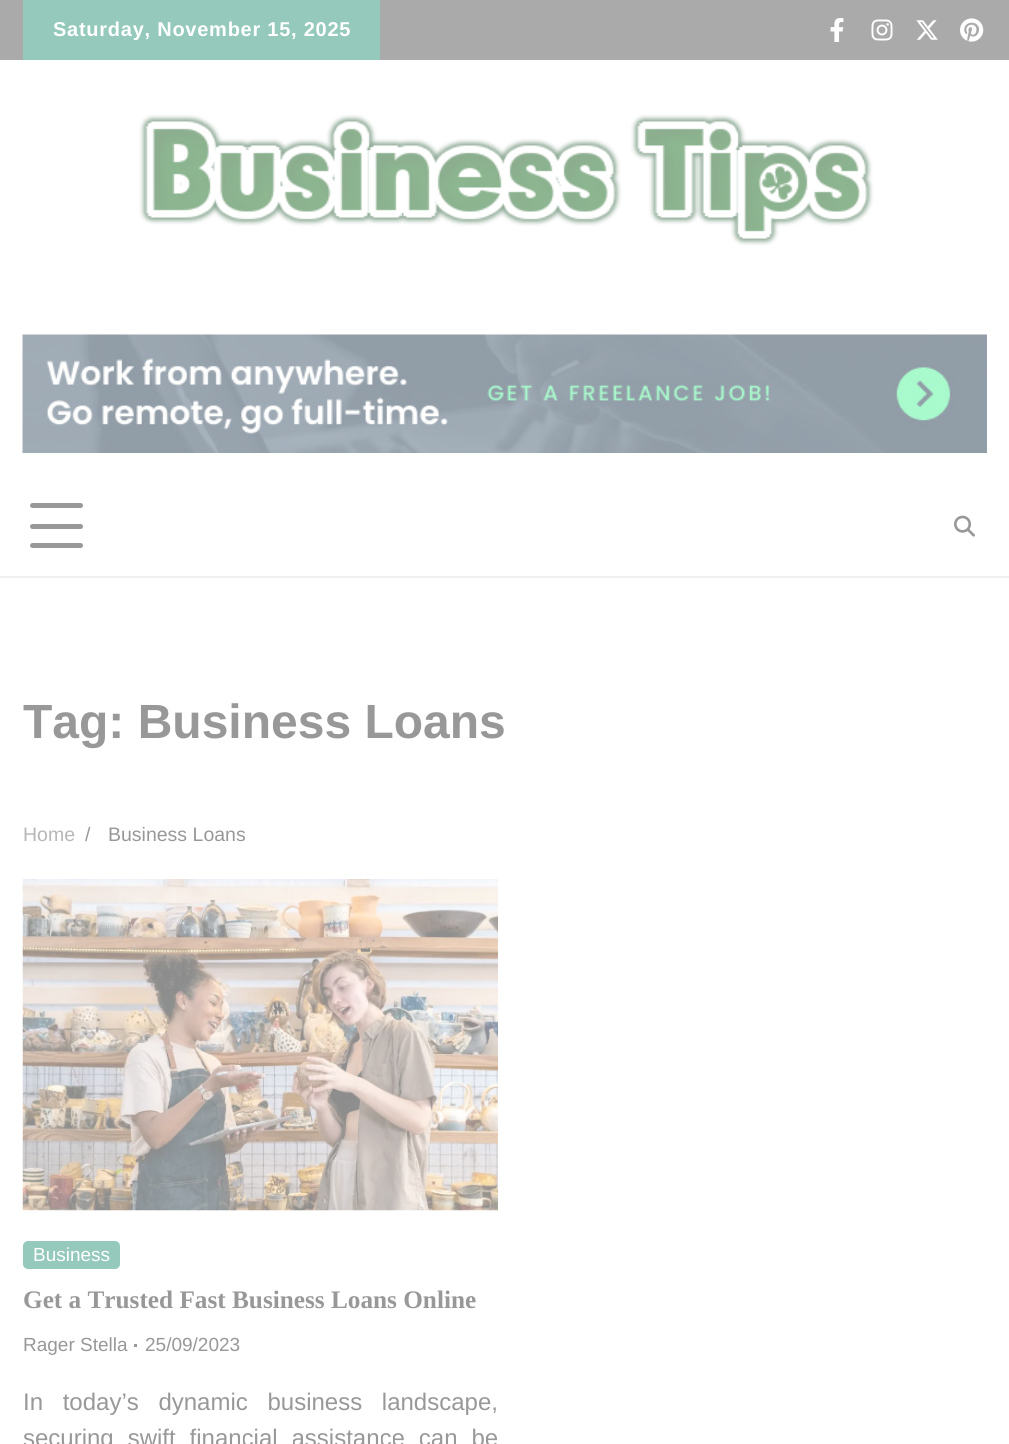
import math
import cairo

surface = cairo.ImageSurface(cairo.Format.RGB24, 1009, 1444)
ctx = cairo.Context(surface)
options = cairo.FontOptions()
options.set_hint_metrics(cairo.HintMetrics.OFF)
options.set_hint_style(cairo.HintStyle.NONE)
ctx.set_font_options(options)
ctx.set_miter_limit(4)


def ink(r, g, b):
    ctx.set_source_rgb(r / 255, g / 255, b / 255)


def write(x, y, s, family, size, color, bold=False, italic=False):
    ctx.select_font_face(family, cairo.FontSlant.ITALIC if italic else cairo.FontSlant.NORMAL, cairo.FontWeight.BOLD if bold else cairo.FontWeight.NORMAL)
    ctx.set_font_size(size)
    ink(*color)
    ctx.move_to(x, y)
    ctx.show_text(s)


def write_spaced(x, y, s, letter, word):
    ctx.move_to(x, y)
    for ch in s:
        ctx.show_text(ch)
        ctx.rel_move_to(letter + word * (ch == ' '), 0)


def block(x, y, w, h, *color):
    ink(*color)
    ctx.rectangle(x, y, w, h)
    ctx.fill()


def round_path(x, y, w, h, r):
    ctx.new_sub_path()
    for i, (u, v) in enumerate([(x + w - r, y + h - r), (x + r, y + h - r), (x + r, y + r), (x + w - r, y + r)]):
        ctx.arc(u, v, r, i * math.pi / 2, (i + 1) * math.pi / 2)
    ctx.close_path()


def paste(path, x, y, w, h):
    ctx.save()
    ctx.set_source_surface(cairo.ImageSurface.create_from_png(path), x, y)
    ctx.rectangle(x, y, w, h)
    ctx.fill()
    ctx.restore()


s1 = dict(family="Liberation Sans", size=48, color=(152, 152, 153), bold=True)
s2 = dict(family="Liberation Sans", size=19.5, color=(183, 183, 184))
s3 = dict(family="Liberation Sans", size=19.5, color=(152, 152, 153))
s4 = dict(family="Liberation Sans", size=19, color=(255, 255, 255))
s5 = dict(family="Liberation Serif", size=25.25, color=(152, 152, 153), bold=True)
s6 = dict(family="Liberation Sans", size=19, color=(152, 152, 153))

ink(255, 255, 255)
ctx.paint()
block(0, 0, 1009, 60, 170, 170, 170)
block(23, 0, 357, 60, 148, 201, 188)
ctx.select_font_face("Liberation Sans", cairo.FontSlant.NORMAL, cairo.FontWeight.BOLD)
ctx.set_font_size(20)
ink(255, 255, 255)
write_spaced(53, 36, "Saturday, November 15, 2025", 0.75, 0)
paste("pic1.png", 830, 18, 14, 24)
paste("pic2.png", 871, 19, 22, 22)
paste("pic3.png", 916, 20, 22, 20)
paste("pic4.png", 960, 18, 24, 24)
paste("pic5.png", 139, 114, 735, 132)
paste("pic6.png", 22, 334, 965, 119)
block(0, 576, 1009, 2, 240, 240, 240)
ink(152, 152, 153)
round_path(30, 503, 53, 5, 2.5)
ctx.fill()
round_path(30, 524, 53, 5, 2.5)
ctx.fill()
round_path(30, 543, 53, 5, 2.5)
ctx.fill()
paste("pic7.png", 954, 515, 21, 22)
write(23, 738, "Tag: Business Loans", **s1)
write(23, 841, "Home", **s2)
write(85, 841, "/", **s3)
write(108, 841, "Business Loans", **s3)
paste("pic8.png", 22, 879, 476, 332)
ink(148, 201, 188)
round_path(23, 1241, 97, 28, 5)
ctx.fill()
write(33, 1261, "Business", **s4)
write(23, 1308, "Get a Trusted Fast Business Loans Online", **s5)
write(23, 1351, "Rager Stella", **s6)
block(134, 1344, 3, 3, 152, 152, 153)
write(145, 1351, "25/09/2023", **s6)
ctx.set_font_size(24)
write_spaced(23, 1410, "In today’s dynamic business landscape,", 0, 13)
write_spaced(23, 1446, "securing swift financial assistance can be", 0, 7.25)
surface.write_to_png("screenshot.png")
